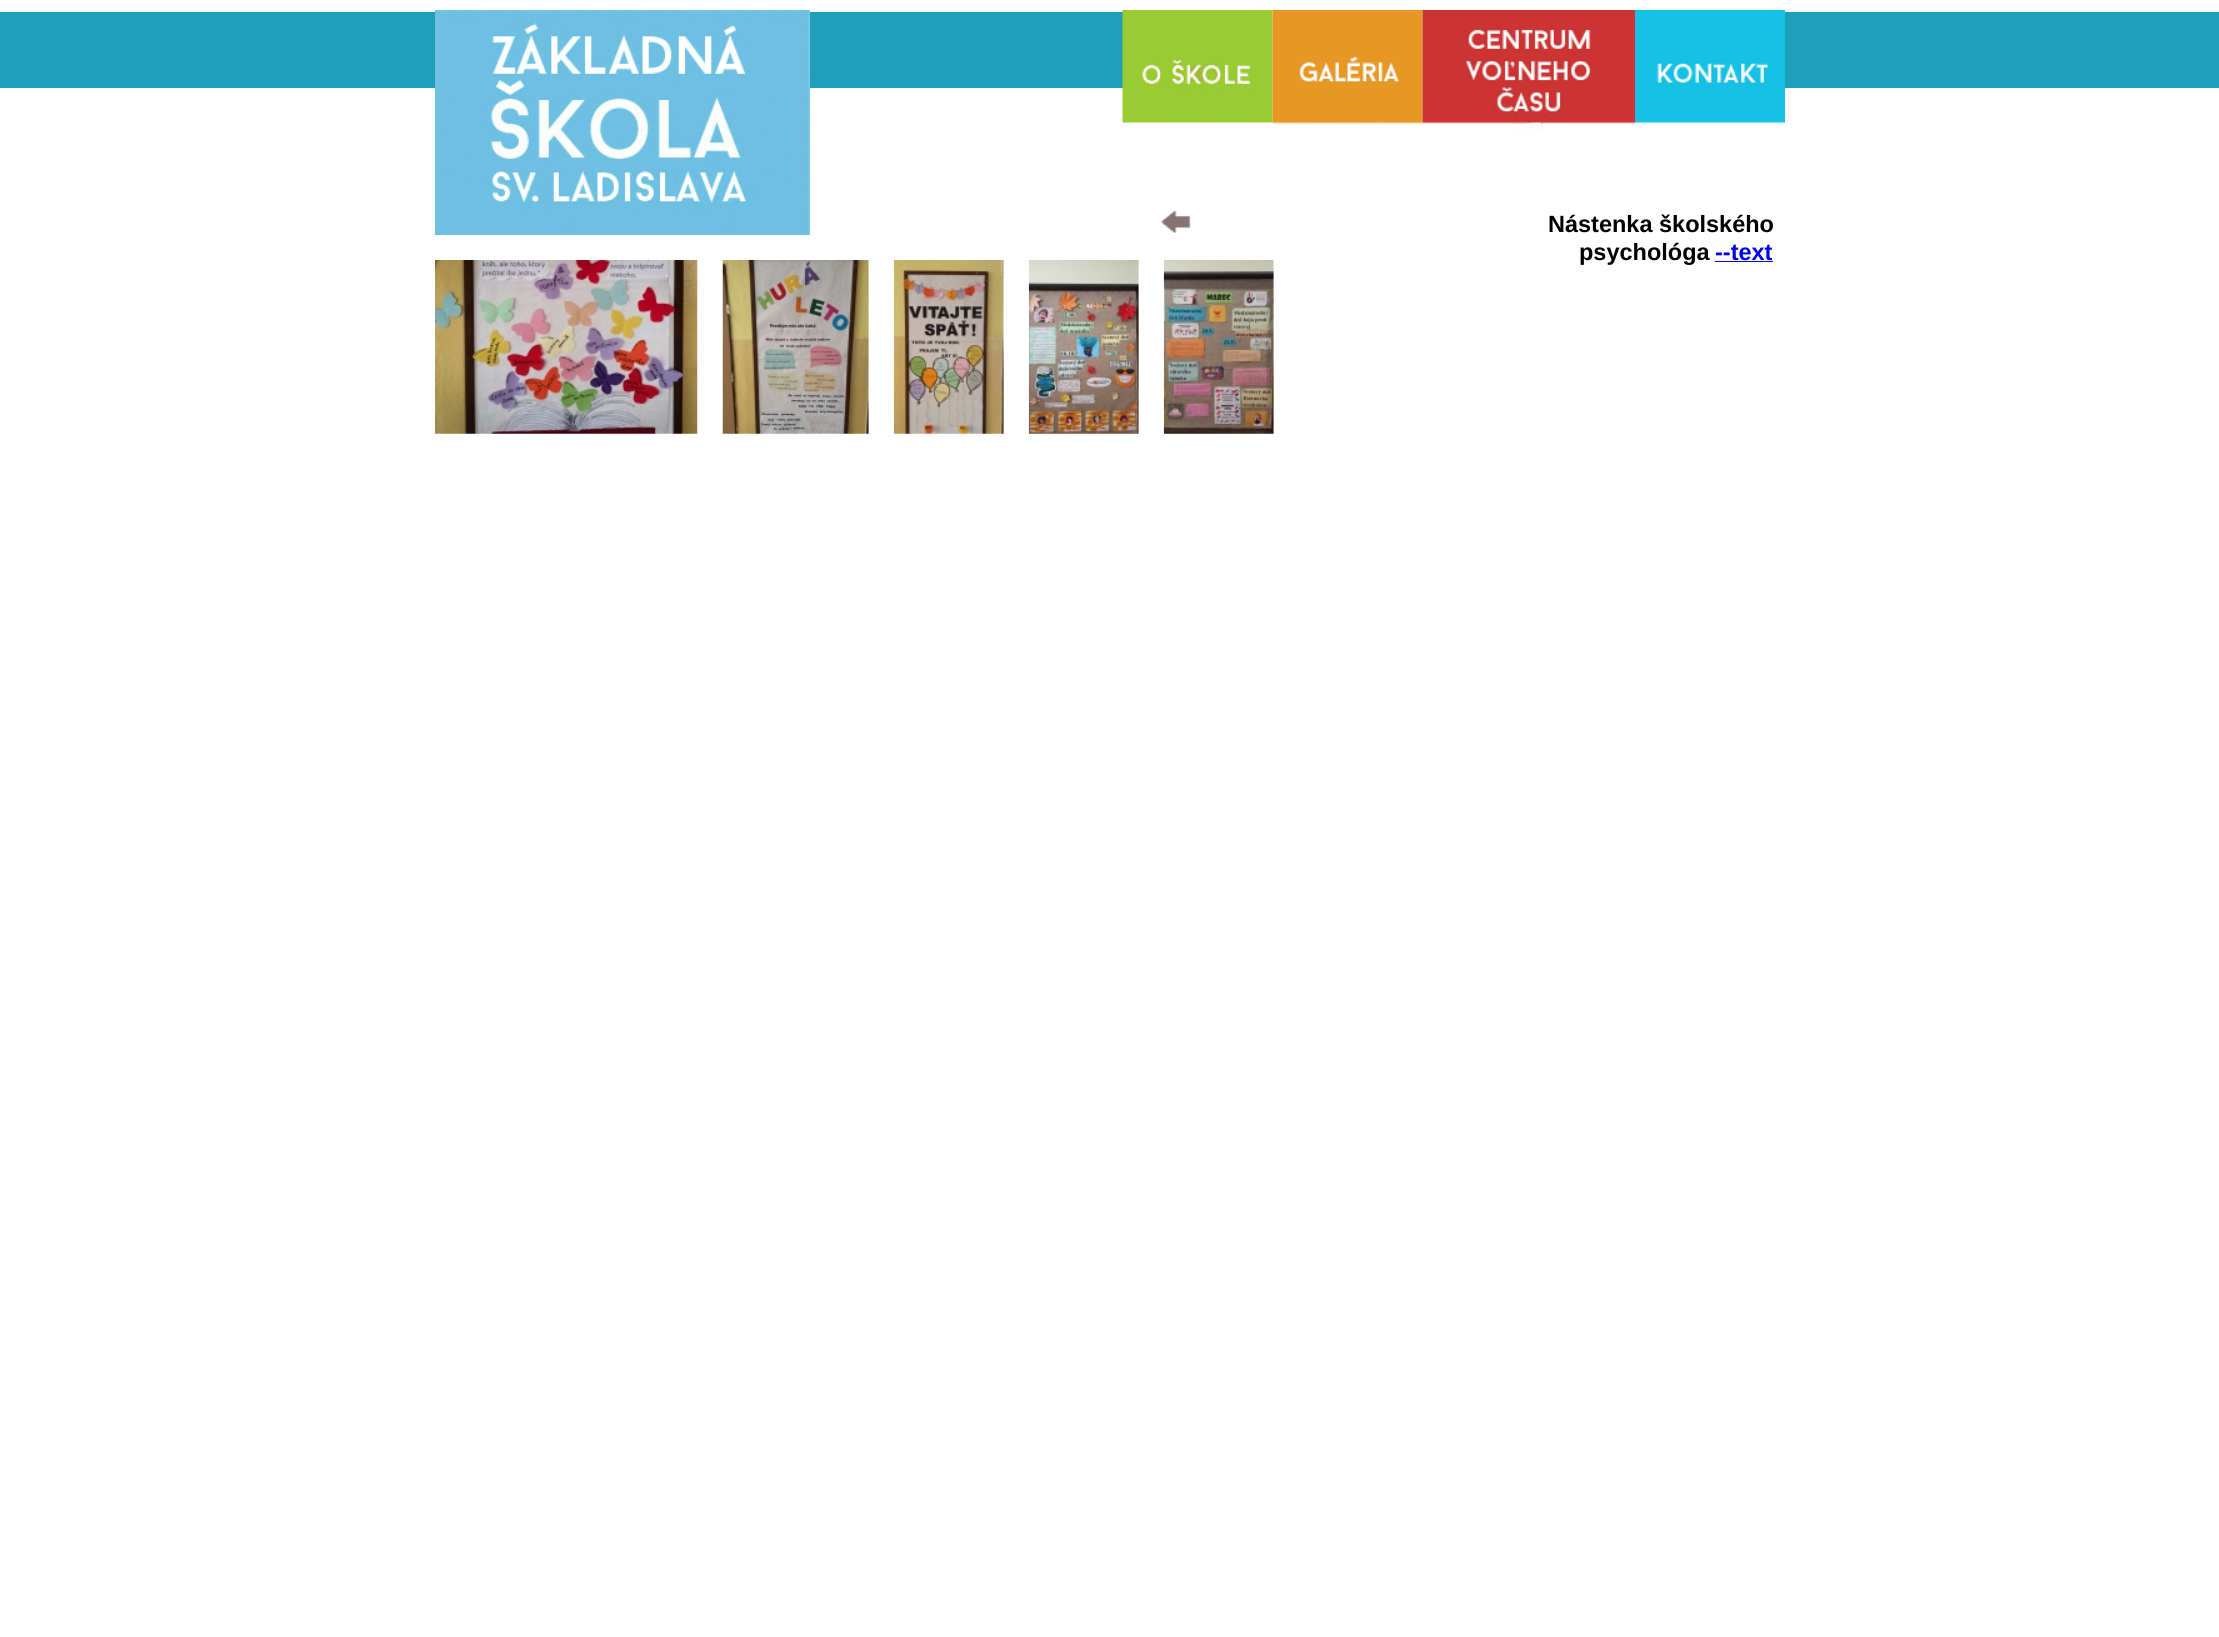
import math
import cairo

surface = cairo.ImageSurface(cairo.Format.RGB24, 2219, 1637)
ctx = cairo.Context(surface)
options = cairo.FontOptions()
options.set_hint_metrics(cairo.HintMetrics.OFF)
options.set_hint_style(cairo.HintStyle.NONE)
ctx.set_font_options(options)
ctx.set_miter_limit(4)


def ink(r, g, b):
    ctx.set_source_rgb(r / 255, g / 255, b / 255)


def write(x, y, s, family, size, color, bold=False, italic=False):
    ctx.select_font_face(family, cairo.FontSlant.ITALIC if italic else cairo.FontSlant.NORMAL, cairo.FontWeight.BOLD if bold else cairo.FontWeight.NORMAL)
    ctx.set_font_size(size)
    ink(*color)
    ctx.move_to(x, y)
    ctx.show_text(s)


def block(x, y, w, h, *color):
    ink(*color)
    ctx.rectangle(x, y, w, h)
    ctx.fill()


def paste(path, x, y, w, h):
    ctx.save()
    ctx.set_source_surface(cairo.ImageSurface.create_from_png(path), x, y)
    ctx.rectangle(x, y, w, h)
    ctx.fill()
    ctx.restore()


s1 = dict(family="Liberation Sans", size=23.5, color=(0, 0, 0), bold=True)
s2 = dict(family="Liberation Sans", size=23.5, color=(0, 0, 238), bold=True)

ink(255, 255, 255)
ctx.paint()
block(0, 12, 2219, 76, 31, 159, 186)
paste("pic1.png", 435, 10, 375, 225)
block(1123, 12, 300, 76, 255, 255, 255)
paste("pic2.png", 1122, 10, 151, 118)
paste("pic3.png", 1272, 10, 151, 117)
paste("pic4.png", 1422, 10, 213, 120)
paste("pic5.png", 1635, 10, 150, 113)
paste("pic6.png", 1161, 211, 30, 22)
write(1548, 232, "Nástenka školského", **s1)
write(1579, 260, "psychológa", **s1)
write(1715, 260, "--text", **s2)
block(1715, 261, 58, 1, 0, 0, 238)
paste("pic7.png", 435, 260, 263, 174)
paste("pic8.png", 722, 260, 147, 174)
paste("pic9.png", 893, 260, 111, 174)
paste("pic10.png", 1028, 260, 111, 174)
paste("pic11.png", 1163, 260, 111, 174)
surface.write_to_png("screenshot.png")
